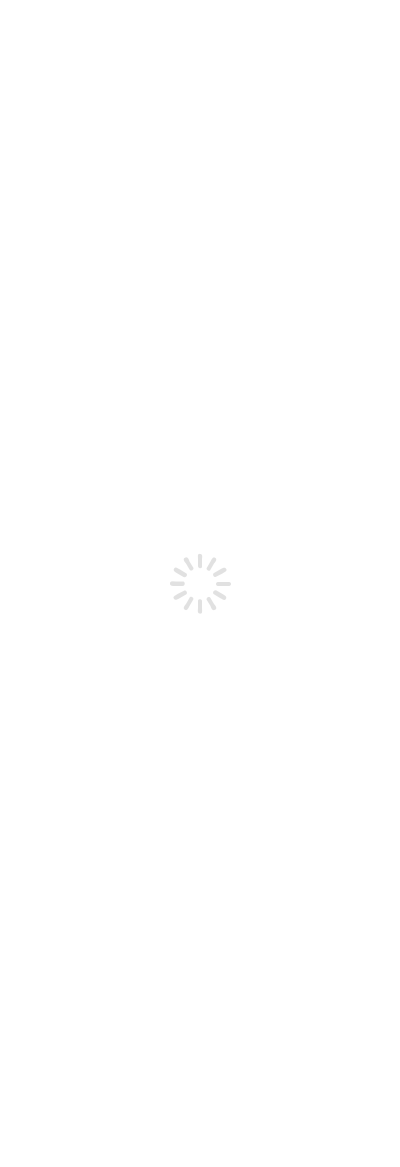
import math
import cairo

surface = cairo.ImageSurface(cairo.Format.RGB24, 400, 1167)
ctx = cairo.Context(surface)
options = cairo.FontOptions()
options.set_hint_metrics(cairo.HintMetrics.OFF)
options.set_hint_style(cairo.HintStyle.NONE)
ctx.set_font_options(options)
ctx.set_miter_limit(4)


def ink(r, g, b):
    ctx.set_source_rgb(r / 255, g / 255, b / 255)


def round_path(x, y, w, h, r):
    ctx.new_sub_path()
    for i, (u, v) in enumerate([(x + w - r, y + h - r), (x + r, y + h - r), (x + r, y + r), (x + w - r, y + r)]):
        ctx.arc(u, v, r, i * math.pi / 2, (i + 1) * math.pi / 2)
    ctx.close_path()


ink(255, 255, 255)
ctx.paint()
ink(225, 225, 225)
ctx.new_path()
ctx.move_to(216.5, 590.5)
ctx.line_to(222.5, 594)
ctx.curve_to(224, 595, 228, 596.5, 225.5, 599.5)
ctx.curve_to(224, 601, 221.5, 598.5, 220, 598)
ctx.line_to(213.5, 594)
ctx.curve_to(212, 592, 214.5, 589.5, 216.5, 590.5)
ctx.close_path()
ctx.fill()
ctx.new_path()
ctx.move_to(210.5, 598)
ctx.line_to(214, 604)
ctx.curve_to(215.5, 605.5, 218, 609, 214.5, 610)
ctx.curve_to(212, 611, 211, 607.5, 210.5, 606)
ctx.line_to(206.5, 599.5)
ctx.curve_to(206.5, 597, 209.5, 596, 210.5, 598)
ctx.close_path()
ctx.move_to(202, 601)
ctx.line_to(202, 608)
ctx.curve_to(202, 610.5, 203, 614.5, 199.5, 613.5)
ctx.curve_to(197, 613, 198, 610, 198, 608)
ctx.line_to(198, 600.5)
ctx.curve_to(198.5, 598.5, 202, 599, 202, 601)
ctx.close_path()
ctx.move_to(193, 600)
ctx.line_to(189.5, 606)
ctx.curve_to(188.5, 608, 187, 611.5, 184.5, 609.5)
ctx.curve_to(182.5, 608, 185, 605, 186, 604)
ctx.line_to(190, 597)
ctx.curve_to(191.5, 596, 194.5, 598, 193, 600)
ctx.close_path()
ctx.fill()
ctx.new_path()
ctx.move_to(186, 594.5)
ctx.line_to(180, 598)
ctx.curve_to(178, 599, 175, 601.5, 173.5, 598)
ctx.curve_to(173, 596, 176.5, 595, 177.5, 594)
ctx.line_to(184.5, 590.5)
ctx.curve_to(186.5, 590, 188, 593.5, 186, 594.5)
ctx.close_path()
ctx.move_to(182.5, 586)
ctx.line_to(175.5, 586)
ctx.curve_to(173.5, 586, 169.5, 586.5, 170, 583)
ctx.curve_to(170.5, 580.5, 174, 581.5, 175.5, 581.5)
ctx.line_to(183.5, 581.5)
ctx.curve_to(185.5, 582.5, 185, 586, 182.5, 586)
ctx.close_path()
ctx.move_to(183.5, 577)
ctx.line_to(177.5, 573.5)
ctx.curve_to(176, 572.5, 172, 571, 174.5, 568)
ctx.curve_to(176, 566.5, 178.5, 569, 180, 569.5)
ctx.line_to(186.5, 573.5)
ctx.curve_to(188, 575.5, 185.5, 578, 183.5, 577)
ctx.close_path()
ctx.fill()
ctx.new_path()
ctx.move_to(189.5, 569.5)
ctx.line_to(186, 563.5)
ctx.curve_to(184.5, 562, 182, 558.5, 185.5, 557.5)
ctx.curve_to(188, 556.5, 189, 560, 189.5, 561.5)
ctx.line_to(193.5, 568)
ctx.curve_to(193.5, 570.5, 190.5, 571.5, 189.5, 569.5)
ctx.close_path()
ctx.move_to(198, 566)
ctx.line_to(198, 559)
ctx.curve_to(198, 557, 197, 553, 200.5, 554)
ctx.curve_to(203, 554.5, 202, 557.5, 202, 559)
ctx.line_to(202, 567)
ctx.curve_to(201.5, 569, 198, 568.5, 198, 566)
ctx.close_path()
ctx.move_to(207, 567.5)
ctx.line_to(210.5, 561.5)
ctx.curve_to(211.5, 559.5, 213, 556, 215.5, 558)
ctx.curve_to(217.5, 559.5, 215, 562.5, 214, 563.5)
ctx.line_to(210, 570.5)
ctx.curve_to(208.5, 571.5, 205.5, 569.5, 207, 567.5)
ctx.close_path()
ctx.fill()
ctx.new_path()
ctx.move_to(214, 573)
ctx.line_to(220, 569.5)
ctx.curve_to(222, 568.5, 225, 566, 226.5, 569.5)
ctx.curve_to(227, 571.5, 223.5, 572.5, 222.5, 573.5)
ctx.line_to(215.5, 577)
ctx.curve_to(213.5, 577.5, 212, 574, 214, 573)
ctx.close_path()
ctx.fill()
round_path(216, 582, 15, 4, 2)
ctx.fill()
surface.write_to_png("screenshot.png")
